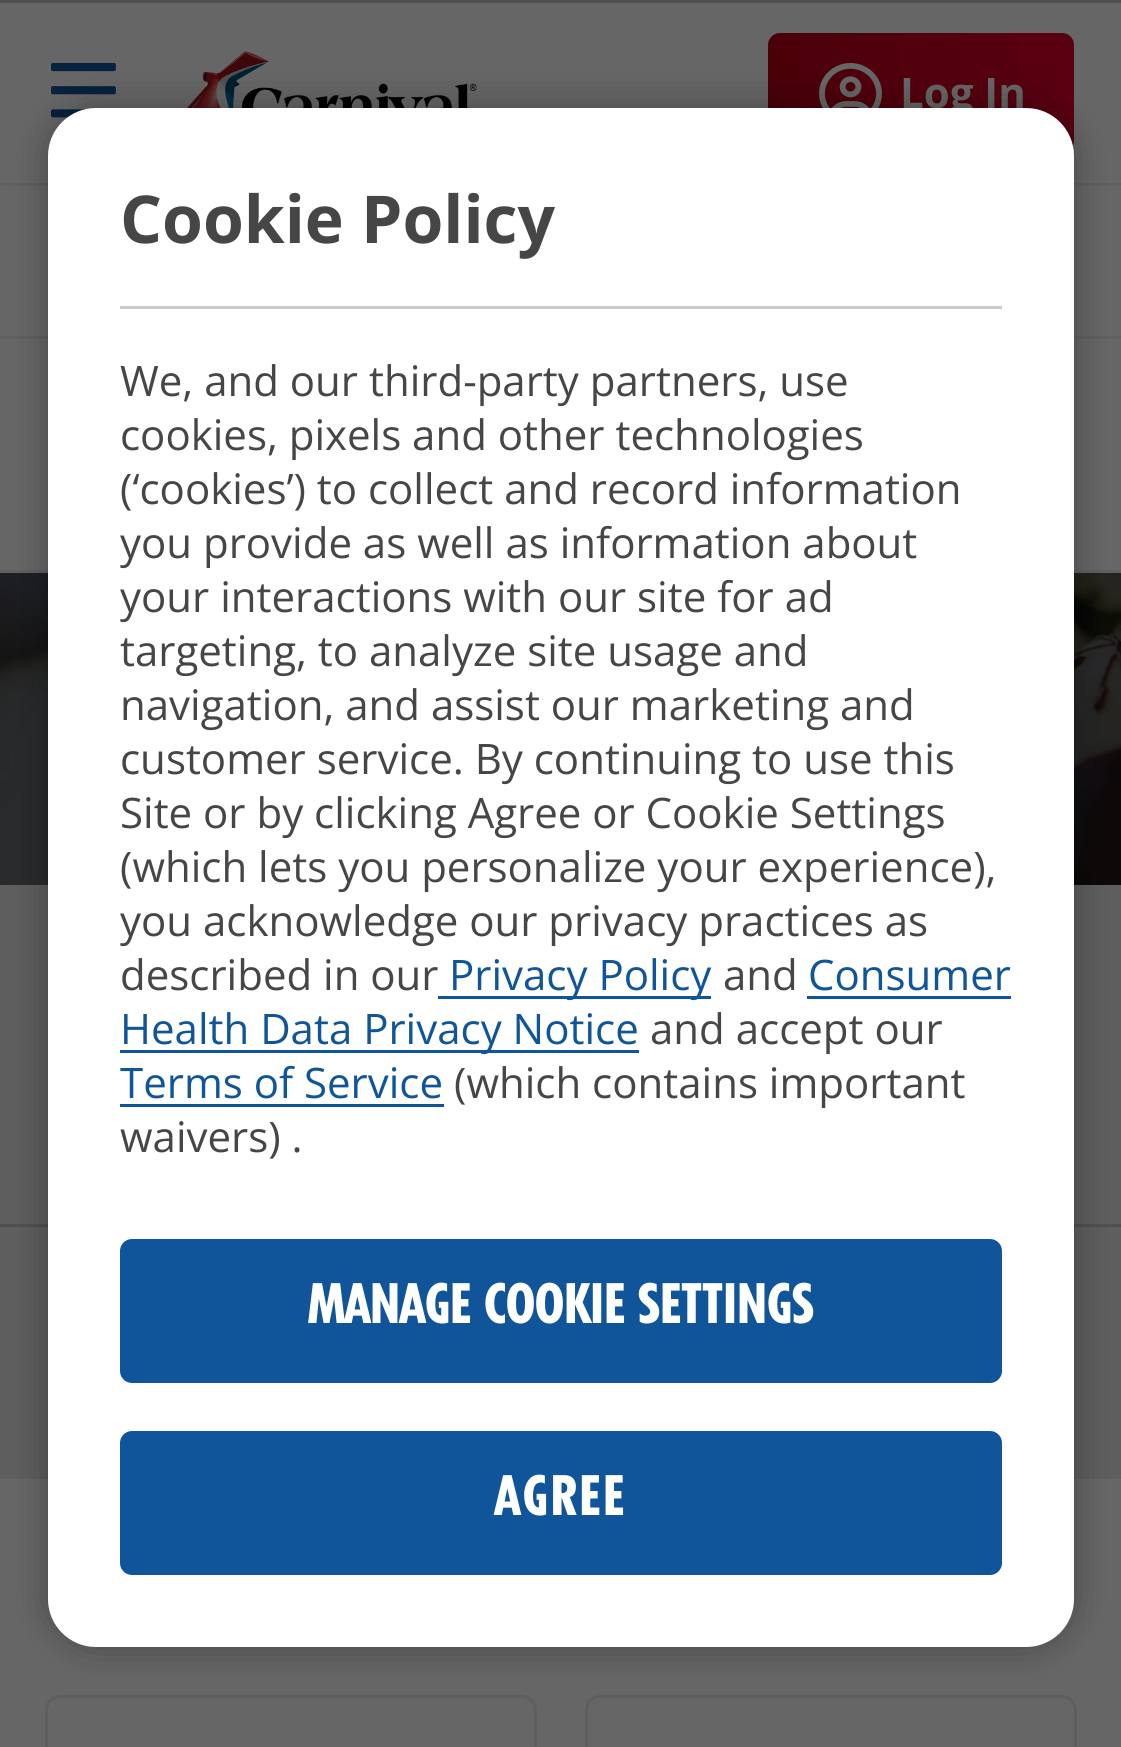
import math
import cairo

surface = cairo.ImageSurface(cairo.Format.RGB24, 1121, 1747)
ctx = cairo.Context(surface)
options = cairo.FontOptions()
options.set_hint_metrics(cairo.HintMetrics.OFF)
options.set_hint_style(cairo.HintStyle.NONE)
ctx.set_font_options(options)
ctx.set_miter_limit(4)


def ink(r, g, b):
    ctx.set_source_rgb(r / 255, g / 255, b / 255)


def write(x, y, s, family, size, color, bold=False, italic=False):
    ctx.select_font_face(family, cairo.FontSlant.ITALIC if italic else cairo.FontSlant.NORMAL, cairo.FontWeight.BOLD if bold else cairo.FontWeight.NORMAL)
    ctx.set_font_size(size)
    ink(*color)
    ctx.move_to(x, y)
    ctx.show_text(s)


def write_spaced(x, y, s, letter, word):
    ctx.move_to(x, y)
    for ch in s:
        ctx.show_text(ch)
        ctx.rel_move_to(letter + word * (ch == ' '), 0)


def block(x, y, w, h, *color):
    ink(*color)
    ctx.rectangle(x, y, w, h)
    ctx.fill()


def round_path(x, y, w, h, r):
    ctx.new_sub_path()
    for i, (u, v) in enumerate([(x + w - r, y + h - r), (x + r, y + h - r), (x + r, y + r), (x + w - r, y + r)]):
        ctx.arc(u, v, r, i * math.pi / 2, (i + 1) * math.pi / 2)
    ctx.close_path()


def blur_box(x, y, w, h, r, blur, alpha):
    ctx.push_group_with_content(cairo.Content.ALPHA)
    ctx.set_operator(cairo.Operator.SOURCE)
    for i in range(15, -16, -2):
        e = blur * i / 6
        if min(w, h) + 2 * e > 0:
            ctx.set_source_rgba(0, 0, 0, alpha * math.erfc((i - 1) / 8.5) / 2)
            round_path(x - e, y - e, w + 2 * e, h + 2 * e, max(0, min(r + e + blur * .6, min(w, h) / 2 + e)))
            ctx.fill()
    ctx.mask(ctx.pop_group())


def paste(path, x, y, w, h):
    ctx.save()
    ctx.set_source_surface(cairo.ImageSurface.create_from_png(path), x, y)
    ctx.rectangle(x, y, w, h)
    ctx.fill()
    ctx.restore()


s1 = dict(family="Open Sans", size=42, color=(102, 102, 102), bold=True)
s2 = dict(family="Open Sans", size=66, color=(70, 70, 70), bold=True)
s3 = dict(family="Open Sans", size=42, color=(70, 70, 70))
s4 = dict(family="Open Sans", size=42, color=(16, 85, 154))
s5 = dict(family="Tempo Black", size=54, color=(255, 255, 255))

ink(102, 102, 102)
ctx.paint()
block(0, 0, 1121, 3, 81, 80, 80)
paste("pic1.png", 51, 63, 65, 55)
paste("pic2.png", 187, 51, 290, 57)
gradient = cairo.LinearGradient(1074, 93, 768, 93)
gradient.add_color_stop_rgba(0, 0.349, 0, 0.067, 1)
gradient.add_color_stop_rgba(1, 0.29, 0, 0.031, 1)
ctx.set_source(gradient)
round_path(768, 33, 306, 120, 12)
ctx.fill()
paste("pic3.png", 819, 63, 63, 45)
write(900, 108, "Log In", **s1)
block(0, 570, 1121, 3, 96, 96, 96)
block(0, 183, 1121, 3, 96, 96, 96)
block(0, 336, 1121, 3, 96, 96, 96)
paste("pic4.png", 0, 573, 1121, 312)
block(0, 885, 1121, 594, 94, 94, 94)
block(0, 1224, 1121, 3, 81, 80, 80)
round_path(46.5, 1696.5, 489, 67, 13.5)
ink(94, 94, 94)
ctx.set_line_width(3)
ctx.stroke()
round_path(586.5, 1696.5, 489, 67, 13.5)
ctx.stroke()
ctx.save()
ctx.set_fill_rule(cairo.FillRule.EVEN_ODD)
ctx.new_path()
ctx.move_to(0, 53)
ctx.line_to(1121, 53)
ctx.line_to(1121, 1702)
ctx.line_to(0, 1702)
ctx.close_path()
ctx.move_to(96, 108)
ctx.line_to(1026, 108)
ctx.curve_to(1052.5, 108, 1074, 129.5, 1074, 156)
ctx.line_to(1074, 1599)
ctx.curve_to(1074, 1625.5, 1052.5, 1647, 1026, 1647)
ctx.line_to(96, 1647)
ctx.curve_to(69.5, 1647, 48, 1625.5, 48, 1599)
ctx.line_to(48, 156)
ctx.curve_to(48, 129.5, 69.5, 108, 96, 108)
ctx.close_path()
ctx.clip()
ink(0, 0, 0)
blur_box(48, 108, 1026, 1539, 48, 18, 0.32)
ctx.restore()
ink(255, 255, 255)
round_path(48, 108, 1026, 1539, 48)
ctx.fill()
block(120, 306, 882, 3, 203, 201, 201)
write(120, 243, "Cookie Policy", **s2)
write(120, 396, "We, and our third-party partners, use", **s3)
write(120, 450, "cookies, pixels and other technologies", **s3)
write(120, 504, "(‘cookies’) to collect and record information", **s3)
write(120, 558, "you provide as well as information about", **s3)
write(120, 612, "your interactions with our site for ad", **s3)
write(120, 666, "targeting, to analyze site usage and", **s3)
write(120, 720, "navigation, and assist our marketing and", **s3)
write(120, 774, "customer service. By continuing to use this", **s3)
write(120, 828, "Site or by clicking Agree or Cookie Settings", **s3)
write(120, 882, "(which lets you personalize your experience),", **s3)
write(120, 936, "you acknowledge our privacy practices as", **s3)
write(120, 990, "described in our", **s3)
block(438, 996, 273, 3, 16, 85, 154)
write(449, 990, "Privacy Policy", **s4)
write(723, 990, "and", **s3)
write(808, 990, "Consumer", **s4)
block(807, 996, 204, 3, 16, 85, 154)
block(120, 1050, 519, 3, 16, 85, 154)
write(120, 1044, "Health Data Privacy Notice", **s4)
write(650, 1044, "and accept our", **s3)
write(120, 1098, "Terms of Service", **s4)
block(120, 1104, 324, 3, 16, 85, 154)
write(454, 1098, "(which contains important", **s3)
write(120, 1152, "waivers) .", **s3)
ink(16, 85, 154)
round_path(121.5, 1240.5, 879, 141, 10.5)
ctx.fill_preserve()
ctx.stroke()
write(308, 1323, "MANAGE COOKIE SETTINGS", **s5)
ink(16, 85, 154)
round_path(121.5, 1432.5, 879, 141, 10.5)
ctx.fill_preserve()
ctx.stroke()
ink(255, 255, 255)
write_spaced(495, 1515, "AGREE", 2.75, 0)
surface.write_to_png("screenshot.png")
